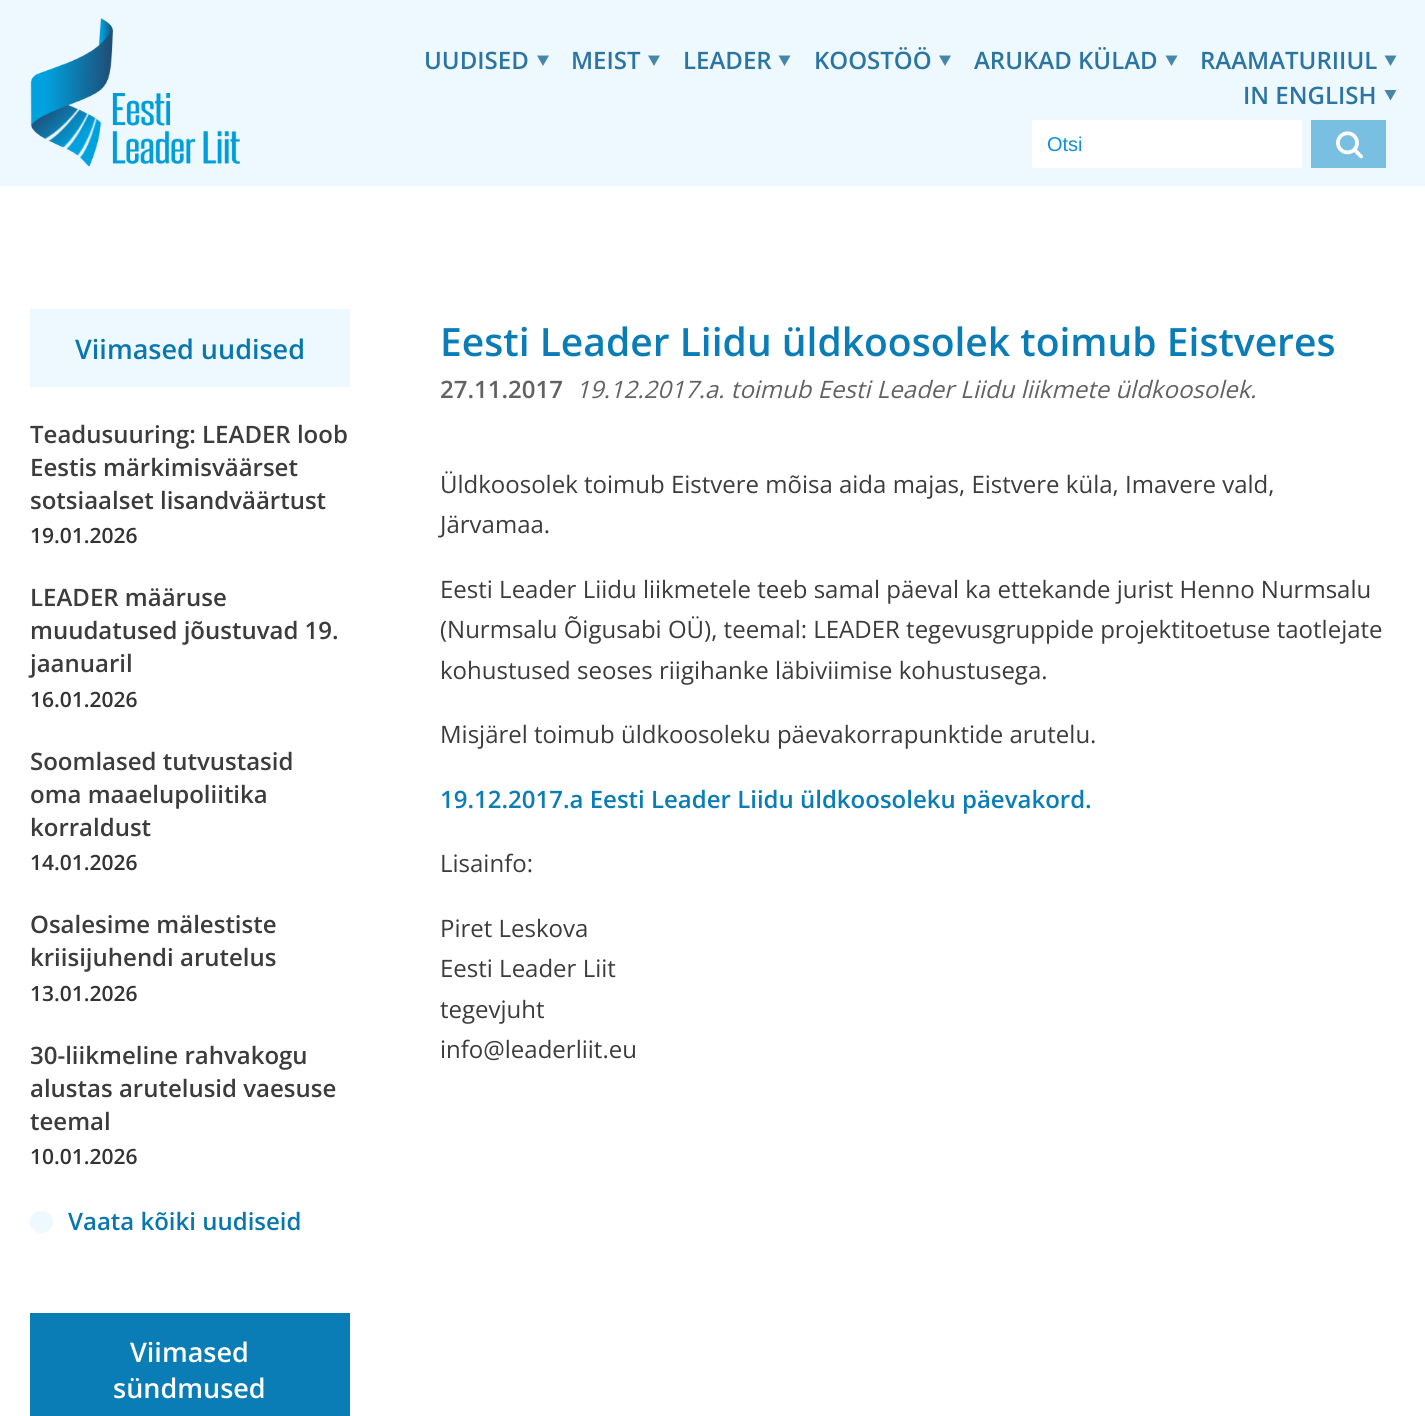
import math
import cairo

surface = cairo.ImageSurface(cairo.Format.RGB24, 1425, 1416)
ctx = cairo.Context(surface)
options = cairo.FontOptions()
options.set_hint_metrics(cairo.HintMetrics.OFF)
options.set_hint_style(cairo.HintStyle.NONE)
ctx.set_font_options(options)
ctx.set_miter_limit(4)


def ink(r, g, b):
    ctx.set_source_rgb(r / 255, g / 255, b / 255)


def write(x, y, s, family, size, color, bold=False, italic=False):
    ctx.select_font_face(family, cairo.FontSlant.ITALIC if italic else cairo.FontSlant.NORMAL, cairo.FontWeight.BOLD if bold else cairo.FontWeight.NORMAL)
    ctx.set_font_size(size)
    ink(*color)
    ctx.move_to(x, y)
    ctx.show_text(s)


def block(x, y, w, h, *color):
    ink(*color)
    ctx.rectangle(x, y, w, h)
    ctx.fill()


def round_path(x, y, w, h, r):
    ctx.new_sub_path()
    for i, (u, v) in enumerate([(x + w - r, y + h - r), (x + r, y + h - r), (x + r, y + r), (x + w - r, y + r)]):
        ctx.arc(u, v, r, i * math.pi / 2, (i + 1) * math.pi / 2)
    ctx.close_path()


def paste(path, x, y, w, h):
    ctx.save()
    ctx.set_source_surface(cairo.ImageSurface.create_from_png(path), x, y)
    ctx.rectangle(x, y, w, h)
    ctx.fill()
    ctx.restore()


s1 = dict(family="Open Sans SemiBold", size=24, color=(44, 116, 162))
s2 = dict(family="Liberation Sans", size=20, color=(12, 146, 214))
s3 = dict(family="Open Sans SemiBold", size=27, color=(10, 118, 174))
s4 = dict(family="Open Sans SemiBold", size=24, color=(60, 60, 60))
s5 = dict(family="Open Sans SemiBold", size=21, color=(51, 51, 51))
s6 = dict(family="Open Sans SemiBold", size=24, color=(10, 118, 174))
s7 = dict(family="Open Sans SemiBold", size=27, color=(255, 255, 255))
s8 = dict(family="Open Sans SemiBold", size=39, color=(10, 124, 182))
s9 = dict(family="Open Sans SemiBold", size=24, color=(98, 98, 98))
s10 = dict(family="Open Sans", size=24, color=(98, 98, 98), italic=True)
s11 = dict(family="Open Sans", size=24, color=(60, 60, 60))
s12 = dict(family="Open Sans SemiBold", size=24, color=(10, 124, 182))

ink(255, 255, 255)
ctx.paint()
block(0, 0, 1425, 186, 237, 248, 255)
paste("pic1.png", 30, 18, 210, 149)
write(424, 69, "UUDISED", **s1)
ink(68, 135, 169)
ctx.new_path()
ctx.move_to(537, 55.5)
ctx.line_to(549, 55.5)
ctx.line_to(543, 66)
ctx.close_path()
ctx.fill()
write(571, 69, "MEIST", **s1)
ink(68, 135, 169)
ctx.new_path()
ctx.move_to(648, 55.5)
ctx.line_to(660, 55.5)
ctx.line_to(654, 66)
ctx.close_path()
ctx.fill()
write(683, 69, "LEADER", **s1)
ink(68, 135, 169)
ctx.new_path()
ctx.move_to(778.5, 55.5)
ctx.line_to(790.5, 55.5)
ctx.line_to(784.5, 66)
ctx.close_path()
ctx.fill()
write(814, 69, "KOOSTÖÖ", **s1)
ink(68, 135, 169)
ctx.new_path()
ctx.move_to(939, 55.5)
ctx.line_to(951, 55.5)
ctx.line_to(945, 66)
ctx.close_path()
ctx.fill()
write(974, 69, "ARUKAD KÜLAD", **s1)
ink(68, 135, 169)
ctx.new_path()
ctx.move_to(1165.5, 55.5)
ctx.line_to(1177.5, 55.5)
ctx.line_to(1171.5, 66)
ctx.close_path()
ctx.fill()
write(1200, 69, "RAAMATURIIUL", **s1)
ink(68, 135, 169)
ctx.new_path()
ctx.move_to(1384.5, 55.5)
ctx.line_to(1396.5, 55.5)
ctx.line_to(1390.5, 66)
ctx.close_path()
ctx.fill()
write(1243, 104, "IN ENGLISH", **s1)
ink(68, 135, 169)
ctx.new_path()
ctx.move_to(1384.5, 90)
ctx.line_to(1396.5, 90)
ctx.line_to(1390.5, 100.5)
ctx.close_path()
ctx.fill()
block(1032, 120, 270, 48, 255, 255, 255)
write(1047, 151, "Otsi", **s2)
block(1311, 120, 75, 48, 121, 191, 226)
paste("pic2.png", 1336, 131, 27, 28)
block(30, 309, 320, 78, 237, 248, 255)
write(75, 359, "Viimased uudised", **s3)
write(30, 443, "Teadusuuring: LEADER loob", **s4)
write(30, 476, "Eestis märkimisväärset", **s4)
write(30, 509, "sotsiaalset lisandväärtust", **s4)
write(30, 543, "19.01.2026", **s5)
write(30, 606, "LEADER määruse", **s4)
write(30, 639, "muudatused jõustuvad 19.", **s4)
write(30, 672, "jaanuaril", **s4)
write(30, 707, "16.01.2026", **s5)
write(30, 770, "Soomlased tutvustasid", **s4)
write(30, 803, "oma maaelupoliitika", **s4)
write(30, 836, "korraldust", **s4)
write(30, 870, "14.01.2026", **s5)
write(30, 933, "Osalesime mälestiste", **s4)
write(30, 966, "kriisijuhendi arutelus", **s4)
write(30, 1001, "13.01.2026", **s5)
write(30, 1064, "30-liikmeline rahvakogu", **s4)
write(30, 1097, "alustas arutelusid vaesuse", **s4)
write(30, 1130, "teemal", **s4)
write(30, 1164, "10.01.2026", **s5)
ink(237, 248, 255)
round_path(30, 1211, 23, 22, 11)
ctx.fill()
write(68, 1230, "Vaata kõiki uudiseid", **s6)
block(30, 1313, 320, 103, 10, 124, 182)
write(130, 1362, "Viimased", **s7)
write(113, 1398, "sündmused", **s7)
write(440, 356, "Eesti Leader Liidu üldkoosolek toimub Eistveres", **s8)
write(440, 398, "27.11.2017", **s9)
write(576, 398, "19.12.2017.a. toimub Eesti Leader Liidu liikmete üldkoosolek.", **s10)
write(440, 493, "Üldkoosolek toimub Eistvere mõisa aida majas, Eistvere küla, Imavere vald,", **s11)
write(440, 533, "Järvamaa.", **s11)
write(440, 598, "Eesti Leader Liidu liikmetele teeb samal päeval ka ettekande jurist Henno Nurmsalu", **s11)
write(440, 638, "(Nurmsalu Õigusabi OÜ), teemal: LEADER tegevusgruppide projektitoetuse taotlejate", **s11)
write(440, 679, "kohustused seoses riigihanke läbiviimise kohustusega.", **s11)
write(440, 743, "Misjärel toimub üldkoosoleku päevakorrapunktide arutelu.", **s11)
write(440, 808, "19.12.2017.a Eesti Leader Liidu üldkoosoleku päevakord.", **s12)
write(440, 872, "Lisainfo:", **s11)
write(440, 937, "Piret Leskova", **s11)
write(440, 977, "Eesti Leader Liit", **s11)
write(440, 1018, "tegevjuht", **s11)
write(440, 1058, "info@leaderliit.eu", **s11)
surface.write_to_png("screenshot.png")
